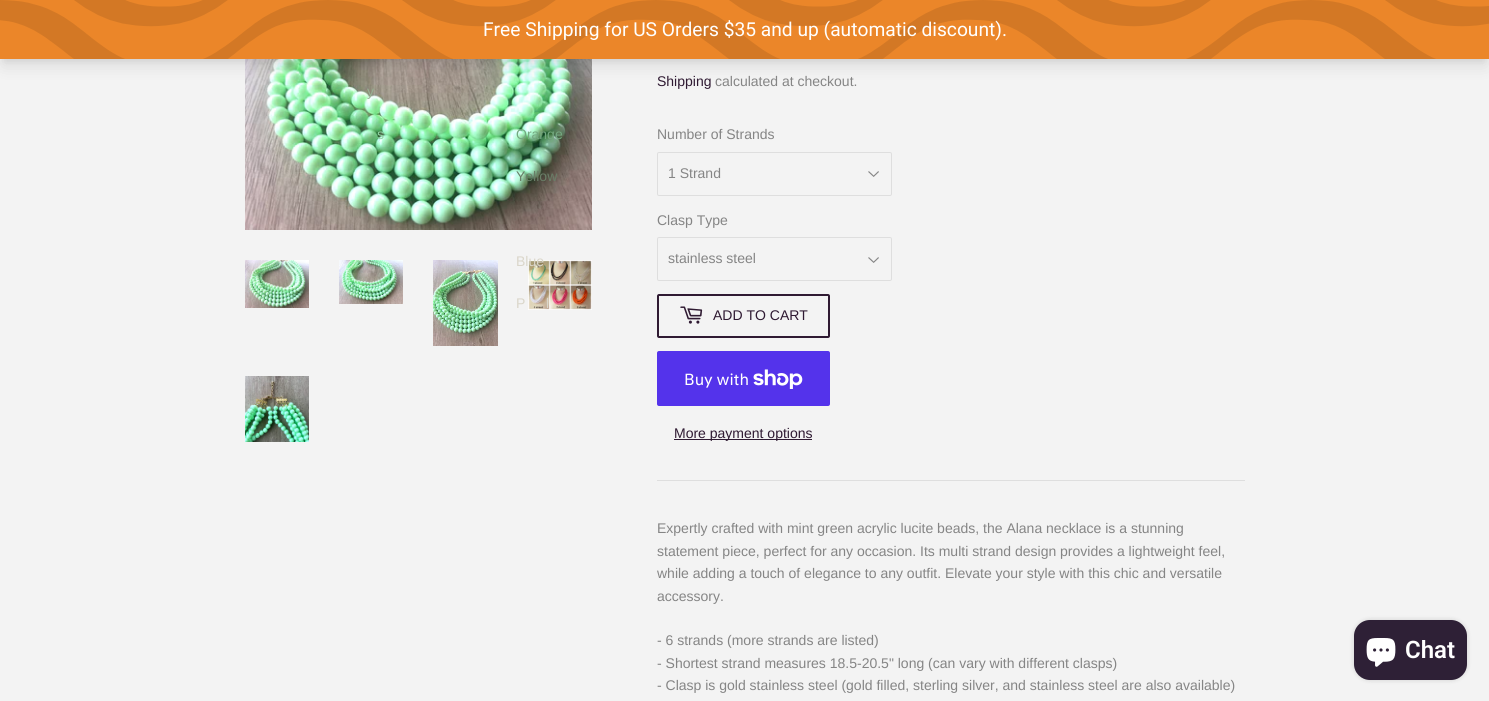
import math
import cairo

surface = cairo.ImageSurface(cairo.Format.RGB24, 1489, 701)
ctx = cairo.Context(surface)
options = cairo.FontOptions()
options.set_hint_metrics(cairo.HintMetrics.OFF)
options.set_hint_style(cairo.HintStyle.NONE)
ctx.set_font_options(options)
ctx.set_miter_limit(4)


def ink(r, g, b):
    ctx.set_source_rgb(r / 255, g / 255, b / 255)


def write(x, y, s, family, size, color, bold=False, italic=False):
    ctx.select_font_face(family, cairo.FontSlant.ITALIC if italic else cairo.FontSlant.NORMAL, cairo.FontWeight.BOLD if bold else cairo.FontWeight.NORMAL)
    ctx.set_font_size(size)
    ink(*color)
    ctx.move_to(x, y)
    ctx.show_text(s)


def block(x, y, w, h, *color):
    ink(*color)
    ctx.rectangle(x, y, w, h)
    ctx.fill()


def round_path(x, y, w, h, r):
    ctx.new_sub_path()
    for i, (u, v) in enumerate([(x + w - r, y + h - r), (x + r, y + h - r), (x + r, y + r), (x + w - r, y + r)]):
        ctx.arc(u, v, r, i * math.pi / 2, (i + 1) * math.pi / 2)
    ctx.close_path()


def blur_box(x, y, w, h, r, blur, alpha):
    ctx.push_group_with_content(cairo.Content.ALPHA)
    ctx.set_operator(cairo.Operator.SOURCE)
    for i in range(15, -16, -2):
        e = blur * i / 6
        if min(w, h) + 2 * e > 0:
            ctx.set_source_rgba(0, 0, 0, alpha * math.erfc((i - 1) / 8.5) / 2)
            round_path(x - e, y - e, w + 2 * e, h + 2 * e, max(0, min(r + e + blur * .6, min(w, h) / 2 + e)))
            ctx.fill()
    ctx.mask(ctx.pop_group())


def paste(path, x, y, w, h):
    ctx.save()
    ctx.set_source_surface(cairo.ImageSurface.create_from_png(path), x, y)
    ctx.rectangle(x, y, w, h)
    ctx.fill()
    ctx.restore()


s1 = dict(family="Roboto", size=19.2, color=(255, 255, 255))
s2 = dict(family="Arimo", size=14, color=(151, 177, 147))
s3 = dict(family="Arimo", size=14, color=(116, 169, 129))
s4 = dict(family="Arimo", size=14, color=(105, 126, 103))
s5 = dict(family="Arimo", size=14, color=(218, 214, 202))
s6 = dict(family="Arimo", size=14, color=(144, 214, 163))
s7 = dict(family="Arimo", size=14, color=(47, 26, 50))
s8 = dict(family="Arimo", size=14, color=(133, 133, 133))
s9 = dict(family="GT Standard", size=16, color=(255, 255, 255))
s10 = dict(family="Roboto SemiBold", size=24, color=(255, 255, 255))

ink(243, 243, 243)
ctx.paint()
paste("pic2.png", 245, 59, 347, 171)
ink(0, 0, 0)
blur_box(2, 6, 1485, 55, 0, 3, 0.05)
blur_box(3, 13, 1483, 53, 0, 7.5, 0.1)
block(0, 0, 1489, 59, 235, 134, 41)
paste("pic1.png", 0, 0, 1489, 59)
write(483, 36, "Free Shipping for US Orders $35 and up (automatic discount).", **s1)
write(367, 96, "y", **s2)
write(516, 139, "Orange", **s3)
write(516, 181, "Yellow", **s4)
paste("pic6.png", 528, 260, 64, 50)
write(516, 266, "Blue", **s5)
write(516, 308, "P", **s5)
write(546, 308, "l", **s5)
write(377, 139, "s", **s6)
paste("pic3.png", 245, 260, 64, 48)
paste("pic4.png", 339, 260, 64, 44)
paste("pic5.png", 433, 260, 65, 86)
paste("pic7.png", 245, 376, 64, 66)
write(657, 86, "Shipping", **s7)
write(715, 86, "calculated at checkout.", **s8)
write(657, 139, "Number of Strands", **s8)
paste("pic8.png", 868, 171, 11, 6)
round_path(657.5, 152.5, 234, 43, 1.5)
ink(222, 222, 222)
ctx.set_line_width(1)
ctx.stroke()
write(668, 178, "1 Strand", **s8)
write(657, 225, "Clasp Type", **s8)
paste("pic8.png", 868, 257, 11, 6)
round_path(657.5, 237.5, 234, 43, 1.5)
ink(222, 222, 222)
ctx.stroke()
write(668, 263, "stainless steel", **s8)
round_path(658, 295, 171, 42, 1)
ink(47, 26, 50)
ctx.set_line_width(2)
ctx.stroke()
paste("pic9.png", 680, 306, 23, 18)
write(713, 320, "ADD TO CART", **s7)
ink(84, 51, 235)
round_path(657, 351, 173, 55, 2)
ctx.fill()
write(684, 385, "Buy with", **s9)
paste("pic10.png", 753, 369, 50, 20)
block(674, 439, 138, 1, 47, 26, 50)
write(674, 438, "More payment options", **s7)
block(657, 480, 588, 1, 222, 222, 222)
write(657, 533, "Expertly crafted with mint green acrylic lucite beads, the Alana necklace is a stunning", **s8)
write(657, 556, "statement piece, perfect for any occasion. Its multi strand design provides a lightweight feel,", **s8)
write(657, 578, "while adding a touch of elegance to any outfit. Elevate your style with this chic and versatile", **s8)
write(657, 601, "accessory.", **s8)
write(657, 645, "- 6 strands (more strands are listed)", **s8)
write(657, 668, "- Shortest strand measures 18.5-20.5\" long (can vary with different clasps)", **s8)
write(657, 690, "- Clasp is gold stainless steel (gold filled, sterling silver, and stainless steel are also available)", **s8)
ink(0, 0, 0)
blur_box(1354, 620, 113, 60, 16, 2.5, 0.15)
ink(46, 32, 54)
round_path(1354, 620, 113, 60, 16)
ctx.fill()
paste("pic11.png", 1366, 638, 30, 29)
write(1405, 658, "Chat", **s10)
surface.write_to_png("screenshot.png")
